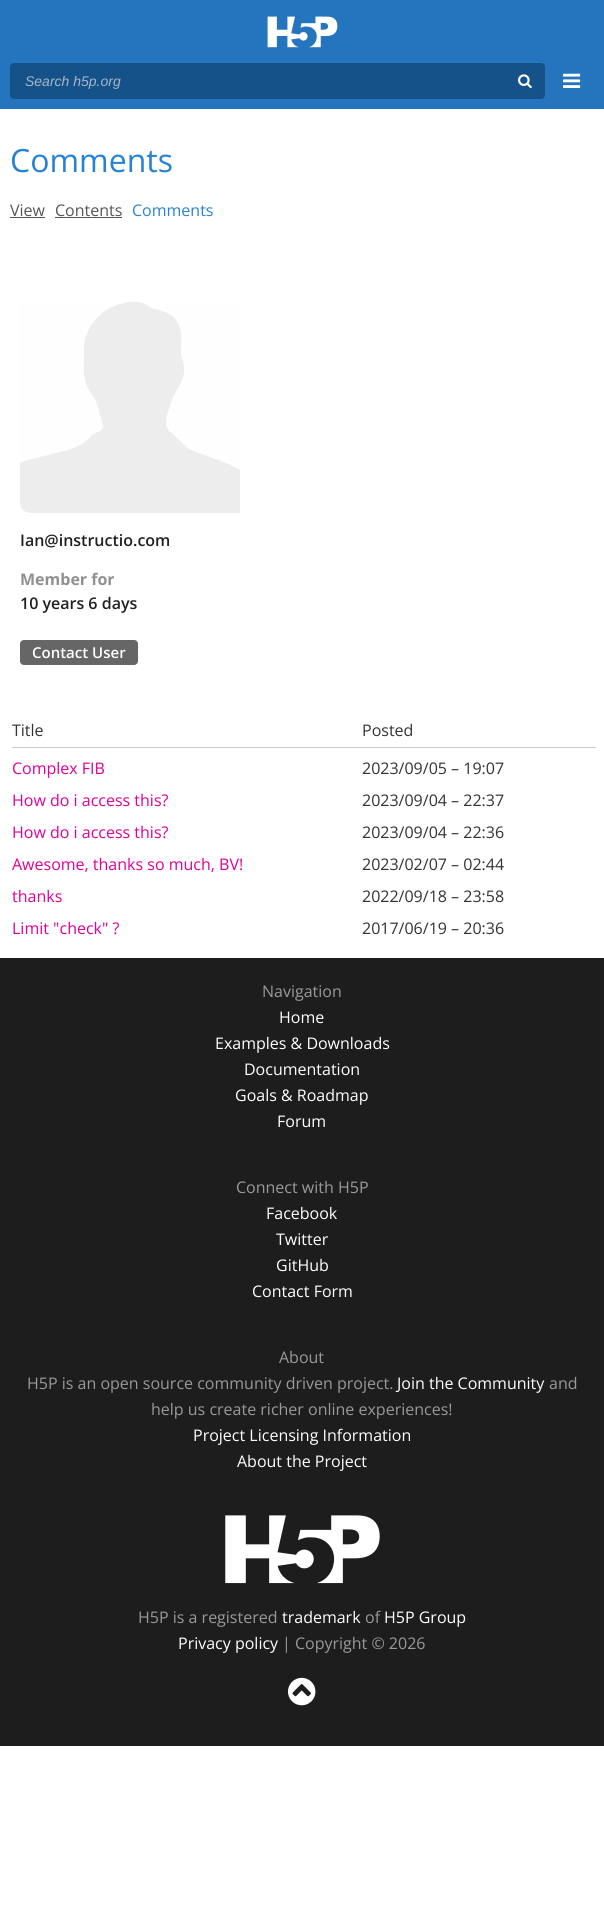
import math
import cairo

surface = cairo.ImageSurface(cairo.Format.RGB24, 604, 1919)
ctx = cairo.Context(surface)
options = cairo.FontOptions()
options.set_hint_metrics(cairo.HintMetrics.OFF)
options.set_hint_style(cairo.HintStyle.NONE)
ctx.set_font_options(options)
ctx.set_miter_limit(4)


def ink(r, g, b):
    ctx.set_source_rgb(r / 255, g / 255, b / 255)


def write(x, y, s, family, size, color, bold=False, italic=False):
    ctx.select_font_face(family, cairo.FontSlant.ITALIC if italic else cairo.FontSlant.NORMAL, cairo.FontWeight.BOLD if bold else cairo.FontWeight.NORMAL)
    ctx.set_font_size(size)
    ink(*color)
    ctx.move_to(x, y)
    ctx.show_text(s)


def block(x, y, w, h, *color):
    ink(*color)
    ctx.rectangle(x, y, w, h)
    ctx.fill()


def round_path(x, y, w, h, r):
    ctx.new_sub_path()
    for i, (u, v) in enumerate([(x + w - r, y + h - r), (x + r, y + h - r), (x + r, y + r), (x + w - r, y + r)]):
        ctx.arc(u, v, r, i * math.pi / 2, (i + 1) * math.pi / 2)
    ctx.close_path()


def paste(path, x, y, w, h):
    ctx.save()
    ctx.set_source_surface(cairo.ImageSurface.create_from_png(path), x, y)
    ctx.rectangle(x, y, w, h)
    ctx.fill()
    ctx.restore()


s1 = dict(family="Liberation Sans", size=14, color=(167, 182, 201), italic=True)
s2 = dict(family="Open Sans", size=32, color=(40, 130, 211))
s3 = dict(family="Open Sans", size=16, color=(85, 85, 85))
s4 = dict(family="Open Sans", size=16, color=(40, 130, 211))
s5 = dict(family="Open Sans SemiBold", size=16, color=(32, 32, 32))
s6 = dict(family="Open Sans", size=16, color=(144, 144, 144), bold=True)
s7 = dict(family="Open Sans SemiBold", size=15, color=(255, 255, 255))
s8 = dict(family="Open Sans", size=16, color=(51, 51, 51))
s9 = dict(family="Open Sans", size=16, color=(221, 0, 153))
s10 = dict(family="Open Sans", size=16, color=(153, 153, 153))
s11 = dict(family="Open Sans", size=16, color=(255, 255, 255))

ink(255, 255, 255)
ctx.paint()
block(0, 0, 604, 109, 37, 117, 190)
paste("pic1.png", 267, 16, 71, 32)
ink(21, 82, 137)
round_path(10, 63, 535, 36, 4)
ctx.fill()
write(25, 86, "Search h5p.org", **s1)
paste("pic2.png", 518, 74, 14, 15)
paste("pic3.png", 563, 73, 18, 15)
write(10, 172, "Comments", **s2)
write(10, 216, "View", **s3)
block(10, 217, 35, 1, 85, 85, 85)
write(55, 216, "Contents", **s3)
block(55, 217, 67, 1, 85, 85, 85)
write(132, 216, "Comments", **s4)
paste("pic4.png", 20, 302, 220, 211)
write(20, 546, "Ian@instructio.com", **s5)
write(20, 585, "Member for", **s6)
write(20, 609, "10 years 6 days", **s5)
ink(102, 102, 102)
round_path(20, 640, 118, 25, 4)
ctx.fill()
write(32, 658, "Contact User", **s7)
block(12, 747, 584, 1, 204, 204, 204)
write(12, 736, "Title", **s8)
write(362, 736, "Posted", **s8)
write(12, 774, "Complex FIB", **s9)
write(362, 774, "2023/09/05 – 19:07", **s8)
write(12, 806, "How do i access this?", **s9)
write(362, 806, "2023/09/04 – 22:37", **s8)
write(12, 838, "How do i access this?", **s9)
write(362, 838, "2023/09/04 – 22:36", **s8)
write(12, 870, "Awesome, thanks so much, BV!", **s9)
write(362, 870, "2023/02/07 – 02:44", **s8)
write(12, 902, "thanks", **s9)
write(362, 902, "2022/09/18 – 23:58", **s8)
write(12, 934, "Limit \"check\" ?", **s9)
write(362, 934, "2017/06/19 – 20:36", **s8)
block(0, 958, 604, 788, 29, 29, 29)
write(262, 997, "Navigation", **s10)
write(279, 1023, "Home", **s11)
write(215, 1049, "Examples & Downloads", **s11)
write(244, 1075, "Documentation", **s11)
write(235, 1101, "Goals & Roadmap", **s11)
write(277, 1127, "Forum", **s11)
write(236, 1193, "Connect with H5P", **s10)
write(266, 1219, "Facebook", **s11)
write(276, 1245, "Twitter", **s11)
write(276, 1271, "GitHub", **s11)
write(252, 1297, "Contact Form", **s11)
write(279, 1363, "About", **s10)
write(27, 1389, "H5P is an open source community driven project.", **s10)
write(397, 1389, "Join the Community", **s11)
write(549, 1389, "and", **s10)
write(151, 1415, "help us create richer online experiences!", **s10)
write(193, 1441, "Project Licensing Information", **s11)
write(237, 1467, "About the Project", **s11)
paste("pic5.png", 225, 1515, 155, 69)
write(138, 1623, "H5P is a registered", **s10)
write(282, 1623, "trademark", **s11)
write(365, 1623, "of", **s10)
write(384, 1623, "H5P Group", **s11)
write(178, 1649, "Privacy policy", **s11)
write(282, 1649, "| Copyright © 2026", **s10)
paste("pic6.png", 288, 1677, 28, 29)
surface.write_to_png("screenshot.png")
